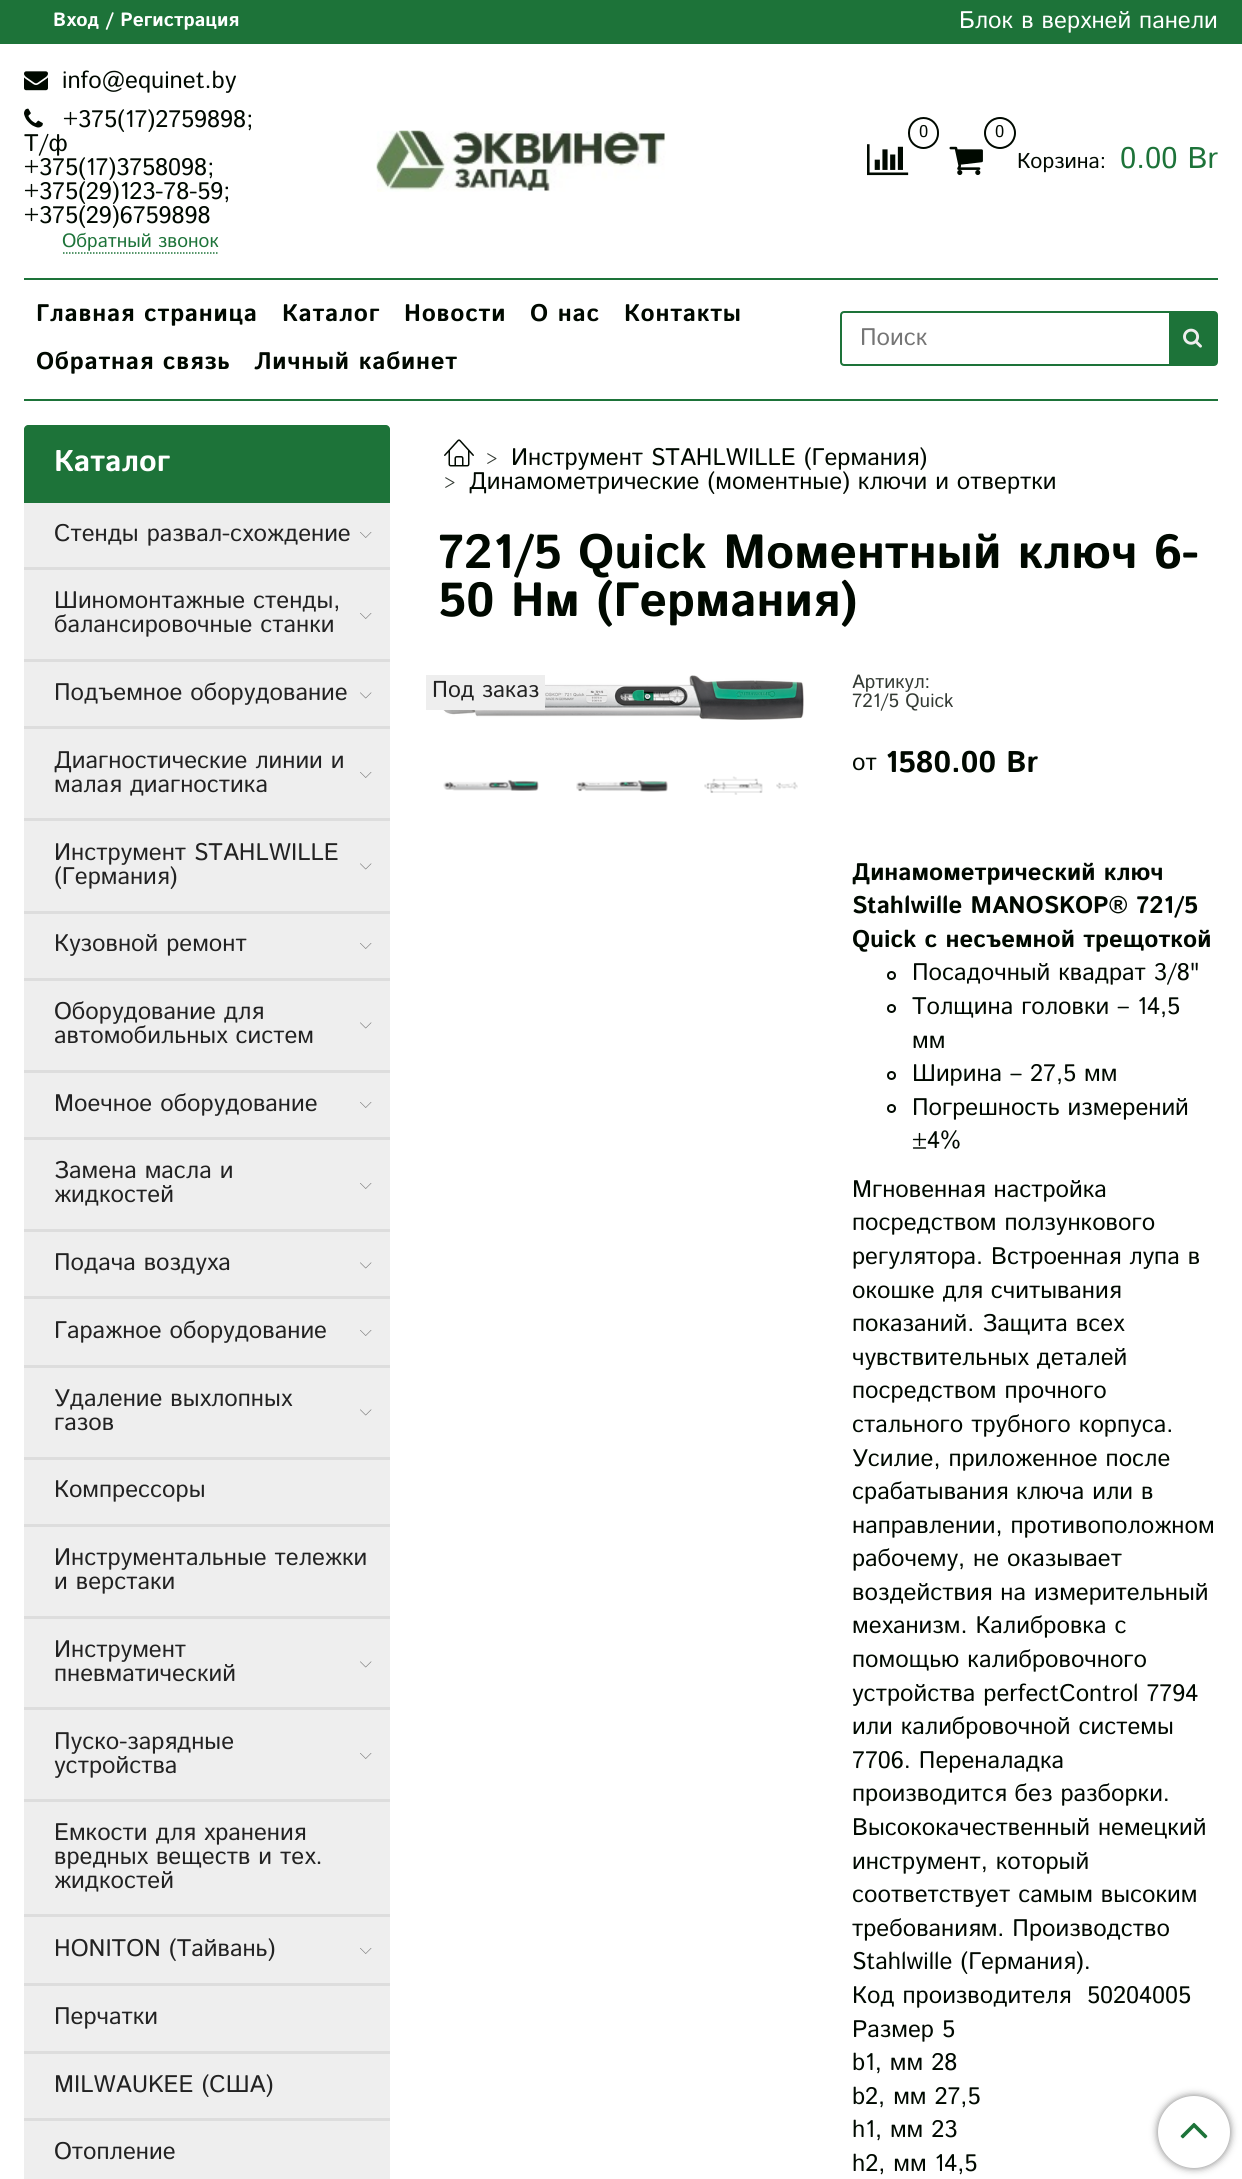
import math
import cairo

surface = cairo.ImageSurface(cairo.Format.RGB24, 1242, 2179)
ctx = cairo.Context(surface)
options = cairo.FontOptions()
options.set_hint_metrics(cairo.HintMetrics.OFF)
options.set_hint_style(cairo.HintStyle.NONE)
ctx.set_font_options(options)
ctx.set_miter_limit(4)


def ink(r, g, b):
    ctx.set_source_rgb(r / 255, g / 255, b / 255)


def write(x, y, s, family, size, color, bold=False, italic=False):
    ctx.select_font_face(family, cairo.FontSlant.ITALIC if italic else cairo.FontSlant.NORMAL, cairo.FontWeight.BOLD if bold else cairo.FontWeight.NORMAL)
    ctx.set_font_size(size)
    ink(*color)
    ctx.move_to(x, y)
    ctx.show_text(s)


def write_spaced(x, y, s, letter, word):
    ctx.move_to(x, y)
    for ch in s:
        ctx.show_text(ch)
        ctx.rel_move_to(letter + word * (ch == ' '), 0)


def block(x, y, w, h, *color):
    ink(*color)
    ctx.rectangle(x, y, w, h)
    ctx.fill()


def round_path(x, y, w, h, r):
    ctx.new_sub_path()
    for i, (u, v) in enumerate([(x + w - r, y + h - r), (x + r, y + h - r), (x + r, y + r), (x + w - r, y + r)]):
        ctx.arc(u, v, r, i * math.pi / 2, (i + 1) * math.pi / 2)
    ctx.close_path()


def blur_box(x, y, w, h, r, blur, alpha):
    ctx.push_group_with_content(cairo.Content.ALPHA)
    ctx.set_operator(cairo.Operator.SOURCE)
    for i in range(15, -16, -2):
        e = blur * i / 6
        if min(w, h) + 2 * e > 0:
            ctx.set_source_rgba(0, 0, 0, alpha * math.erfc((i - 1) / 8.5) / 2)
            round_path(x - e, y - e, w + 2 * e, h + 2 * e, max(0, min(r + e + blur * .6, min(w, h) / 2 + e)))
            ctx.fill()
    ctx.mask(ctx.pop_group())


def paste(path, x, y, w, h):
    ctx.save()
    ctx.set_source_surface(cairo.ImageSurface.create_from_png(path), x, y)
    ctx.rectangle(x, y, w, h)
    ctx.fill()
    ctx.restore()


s1 = dict(family="Istok Web", size=19.25, color=(255, 255, 255), bold=True)
s2 = dict(family="Istok Web", size=24, color=(255, 255, 255))
s3 = dict(family="Istok Web", size=24, color=(0, 9, 0))
s4 = dict(family="Istok Web", size=19.25, color=(29, 115, 57))
s5 = dict(family="Istok Web", size=17, color=(0, 9, 0))
s6 = dict(family="Istok Web", size=21.5, color=(0, 9, 0))
s7 = dict(family="Istok Web", size=30, color=(29, 115, 57))
s8 = dict(family="Istok Web", size=24, color=(117, 117, 117))
s9 = dict(family="Istok Web", size=30, color=(255, 255, 255), bold=True)
s10 = dict(family="Istok Web", size=24, color=(34, 34, 34))
s11 = dict(family="Istok Web", size=18, color=(51, 58, 51))
s12 = dict(family="Istok Web", size=48, color=(0, 9, 0), bold=True)
s13 = dict(family="Istok Web", size=23, color=(34, 34, 34))
s14 = dict(family="Istok Web", size=19.25, color=(51, 58, 51))
s15 = dict(family="Istok Web", size=30, color=(0, 9, 0), bold=True)
s16 = dict(family="Istok Web", size=24, color=(0, 9, 0), bold=True)

ink(255, 255, 255)
ctx.paint()
block(0, 0, 1242, 44, 29, 115, 57)
write(53, 26, "Вход / Регистрация", **s1)
write(959, 28, "Блок в верхней панели", **s2)
paste("pic1.png", 24, 71, 24, 20)
write(62, 88, "info@equinet.by", **s3)
paste("pic2.png", 24, 108, 19, 20)
write(63, 127, "+375(17)2759898;", **s3)
write(24, 151, "Т/ф", **s3)
write(24, 175, "+375(17)3758098;", **s3)
write(24, 199, "+375(29)123-78-59;", **s3)
write(24, 223, "+375(29)6759898", **s3)
ctx.new_path()
ctx.move_to(63, 253)
ctx.line_to(219, 253)
ink(29, 115, 57)
ctx.set_line_width(1.5)
ctx.set_dash([1.5, 1.5])
ctx.stroke()
write(62, 247, "Обратный звонок", **s4)
paste("pic3.png", 376, 130, 290, 62)
paste("pic4.png", 867, 144, 42, 32)
round_path(909, 118, 29, 30, 14.5)
ink(0, 9, 0)
ctx.set_line_width(2)
ctx.set_dash([])
ctx.stroke()
write(919, 137, "0", **s5)
ctx.new_path()
ctx.arc(1000, 133, 15, 0, 2 * math.pi)
ctx.stroke()
write(995, 137, "0", **s5)
paste("pic5.png", 949, 146, 34, 30)
write(1017, 168, "Корзина:", **s6)
write(1120, 168, "0.00 Br", **s7)
block(24, 278, 1194, 2, 29, 115, 57)
block(24, 399, 1194, 2, 29, 115, 57)
ctx.select_font_face("Istok Web", cairo.FontSlant.NORMAL, cairo.FontWeight.BOLD)
ctx.set_font_size(24)
ink(0, 9, 0)
write_spaced(36, 321, "Главная страница", 0.75, 0)
write_spaced(282, 321, "Каталог", 0.75, 0)
write_spaced(404, 321, "Новости", 0.75, 0)
write_spaced(530, 321, "О нас", 0.75, 0)
write_spaced(624, 321, "Контакты", 0.75, 0)
write_spaced(36, 369, "Обратная связь", 0.75, 0)
write_spaced(254, 369, "Личный кабинет", 0.75, 0)
round_path(841, 312, 376, 53, 3)
ink(29, 115, 57)
ctx.stroke()
write(860, 345, "Поиск", **s8)
ink(29, 115, 57)
ctx.new_path()
ctx.move_to(1169, 312)
ctx.line_to(1215, 312)
ctx.curve_to(1216, 312, 1217, 313, 1217, 314)
ctx.line_to(1217, 363)
ctx.curve_to(1217, 364, 1216, 365, 1215, 365)
ctx.line_to(1169, 365)
ctx.close_path()
ctx.fill()
paste("pic6.png", 1183, 328, 19, 20)
ctx.new_path()
ctx.move_to(28, 425)
ctx.line_to(386, 425)
ctx.curve_to(388, 425, 390, 427, 390, 429)
ctx.line_to(390, 503)
ctx.line_to(24, 503)
ctx.line_to(24, 429)
ctx.curve_to(24, 427, 26, 425, 28, 425)
ctx.close_path()
ctx.fill()
write(54, 471, "Каталог", **s9)
block(24, 503, 366, 1676, 238, 238, 238)
block(24, 567, 366, 3, 221, 221, 221)
write(54, 541, "Стенды развал-схождение", **s10)
paste("pic7.png", 360, 532, 12, 6)
block(24, 659, 366, 3, 221, 221, 221)
write(54, 608, "Шиномонтажные стенды,", **s10)
write(54, 632, "балансировочные станки", **s10)
paste("pic7.png", 360, 613, 12, 6)
block(24, 726, 366, 3, 221, 221, 221)
write(54, 700, "Подъемное оборудование", **s10)
paste("pic8.png", 360, 692, 12, 7)
block(24, 818, 366, 3, 221, 221, 221)
write(54, 768, "Диагностические линии и", **s10)
write(54, 792, "малая диагностика", **s10)
paste("pic7.png", 360, 772, 12, 6)
block(24, 911, 366, 3, 221, 221, 221)
write(54, 860, "Инструмент STAHLWILLE", **s10)
write(54, 884, "(Германия)", **s10)
paste("pic8.png", 360, 863, 12, 7)
block(24, 978, 366, 3, 221, 221, 221)
write(54, 951, "Кузовной ремонт", **s10)
paste("pic7.png", 360, 943, 12, 6)
block(24, 1070, 366, 3, 221, 221, 221)
write(54, 1019, "Оборудование для", **s10)
write(54, 1043, "автомобильных систем", **s10)
paste("pic8.png", 360, 1022, 12, 7)
block(24, 1137, 366, 3, 221, 221, 221)
write(54, 1111, "Моечное оборудование", **s10)
paste("pic7.png", 360, 1102, 12, 6)
block(24, 1229, 366, 3, 221, 221, 221)
write(54, 1178, "Замена масла и", **s10)
write(54, 1202, "жидкостей", **s10)
paste("pic7.png", 360, 1183, 12, 6)
block(24, 1296, 366, 3, 221, 221, 221)
write(54, 1270, "Подача воздуха", **s10)
paste("pic8.png", 360, 1262, 12, 7)
block(24, 1365, 366, 3, 221, 221, 221)
write(54, 1338, "Гаражное оборудование", **s10)
paste("pic7.png", 360, 1330, 12, 6)
block(24, 1457, 366, 3, 221, 221, 221)
write(54, 1406, "Удаление выхлопных", **s10)
write(54, 1430, "газов", **s10)
paste("pic8.png", 360, 1409, 12, 7)
block(24, 1524, 366, 3, 221, 221, 221)
write(54, 1497, "Компрессоры", **s10)
block(24, 1616, 366, 3, 221, 221, 221)
write(54, 1565, "Инструментальные тележки", **s10)
write(54, 1589, "и верстаки", **s10)
block(24, 1707, 366, 3, 221, 221, 221)
write(54, 1657, "Инструмент", **s10)
write(54, 1681, "пневматический", **s10)
paste("pic8.png", 360, 1661, 12, 7)
block(24, 1799, 366, 3, 221, 221, 221)
write(54, 1749, "Пуско-зарядные", **s10)
write(54, 1773, "устройства", **s10)
paste("pic7.png", 360, 1753, 12, 6)
block(24, 1914, 366, 3, 221, 221, 221)
write(54, 1840, "Емкости для хранения", **s10)
write(54, 1864, "вредных веществ и тех.", **s10)
write(54, 1888, "жидкостей", **s10)
block(24, 1983, 366, 3, 221, 221, 221)
write(54, 1956, "HONITON (Тайвань)", **s10)
paste("pic7.png", 360, 1948, 12, 6)
block(24, 2051, 366, 3, 221, 221, 221)
write(54, 2024, "Перчатки", **s10)
block(24, 2118, 366, 3, 221, 221, 221)
write(54, 2092, "MILWAUKEE (США)", **s10)
write(54, 2159, "Отопление", **s10)
paste("pic9.png", 444, 439, 30, 28)
write(486, 465, ">", **s11)
write(511, 465, "Инструмент STAHLWILLE (Германия)", **s3)
write(444, 489, ">", **s11)
write(469, 489, "Динамометрические (моментные) ключи и отвертки", **s3)
write(438, 568, "721/5 Quick Моментный ключ 6-", **s12)
write(438, 616, "50 Нм (Германия)", **s12)
paste("pic10.png", 438, 675, 366, 45)
paste("pic11.png", 443, 779, 96, 12)
paste("pic12.png", 576, 780, 92, 12)
paste("pic13.png", 704, 776, 94, 19)
block(426, 675, 119, 35, 238, 238, 238)
write(432, 697, "Под заказ", **s13)
write(852, 688, "Артикул:", **s14)
write(852, 707, "721/5 Quick", **s14)
write(852, 770, "от", **s3)
write(885, 772, "1580.00 Br", **s15)
write(852, 880, "Динамометрический ключ", **s16)
write(852, 913, "Stahlwille MANOSKOP® 721/5", **s16)
write(852, 947, "Quick с несъемной трещоткой", **s16)
ctx.new_path()
ctx.arc(891.5, 975.5, 3.5, 0, 2 * math.pi)
ctx.stroke()
write(912, 980, "Посадочный квадрат 3/8\"", **s3)
ctx.new_path()
ctx.arc(891.5, 1008.5, 3.5, 0, 2 * math.pi)
ctx.stroke()
write(912, 1014, "Толщина головки – 14,5", **s3)
write(912, 1048, "мм", **s3)
ctx.new_path()
ctx.arc(891.5, 1075.5, 3.5, 0, 2 * math.pi)
ctx.stroke()
write(912, 1081, "Ширина – 27,5 мм", **s3)
ctx.new_path()
ctx.arc(891.5, 1108.5, 3.5, 0, 2 * math.pi)
ctx.stroke()
write(912, 1115, "Погрешность измерений", **s3)
write(912, 1148, "±4%", **s3)
write(852, 1197, "Мгновенная настройка", **s3)
write(852, 1230, "посредством ползункового", **s3)
write(852, 1264, "регулятора. Встроенная лупа в", **s3)
write(852, 1298, "окошке для считывания", **s3)
write(852, 1331, "показаний. Защита всех", **s3)
write(852, 1365, "чувствительных деталей", **s3)
write(852, 1398, "посредством прочного", **s3)
write(852, 1432, "стального трубного корпуса.", **s3)
write(852, 1466, "Усилие, приложенное после", **s3)
write(852, 1499, "срабатывания ключа или в", **s3)
write(852, 1533, "направлении, противоположном", **s3)
write(852, 1566, "рабочему, не оказывает", **s3)
write(852, 1600, "воздействия на измерительный", **s3)
write(852, 1633, "механизм. Калибровка с", **s3)
write(852, 1667, "помощью калибровочного", **s3)
write(852, 1701, "устройства perfectControl 7794", **s3)
write(852, 1734, "или калибровочной системы", **s3)
write(852, 1768, "7706. Переналадка", **s3)
write(852, 1801, "производится без разборки.", **s3)
write(852, 1835, "Высококачественный немецкий", **s3)
write(852, 1869, "инструмент, который", **s3)
write(852, 1902, "соответствует самым высоким", **s3)
write(852, 1936, "требованиям. Производство", **s3)
write(852, 1969, "Stahlwille (Германия).", **s3)
write(852, 2003, "Код производителя", **s3)
write(1087, 2003, "50204005", **s3)
write(852, 2037, "Размер 5", **s3)
write(852, 2070, "b1, мм 28", **s3)
write(852, 2104, "b2, мм 27,5", **s3)
write(852, 2137, "h1, мм 23", **s3)
write(852, 2171, "h2, мм 14,5", **s3)
ink(119, 119, 119)
blur_box(1158, 2096, 72, 72, 36, 4, 1)
ink(255, 255, 255)
ctx.arc(1194, 2132, 36, 0, 2 * math.pi)
ctx.fill()
paste("pic14.png", 1180, 2122, 28, 17)
surface.write_to_png("screenshot.png")
